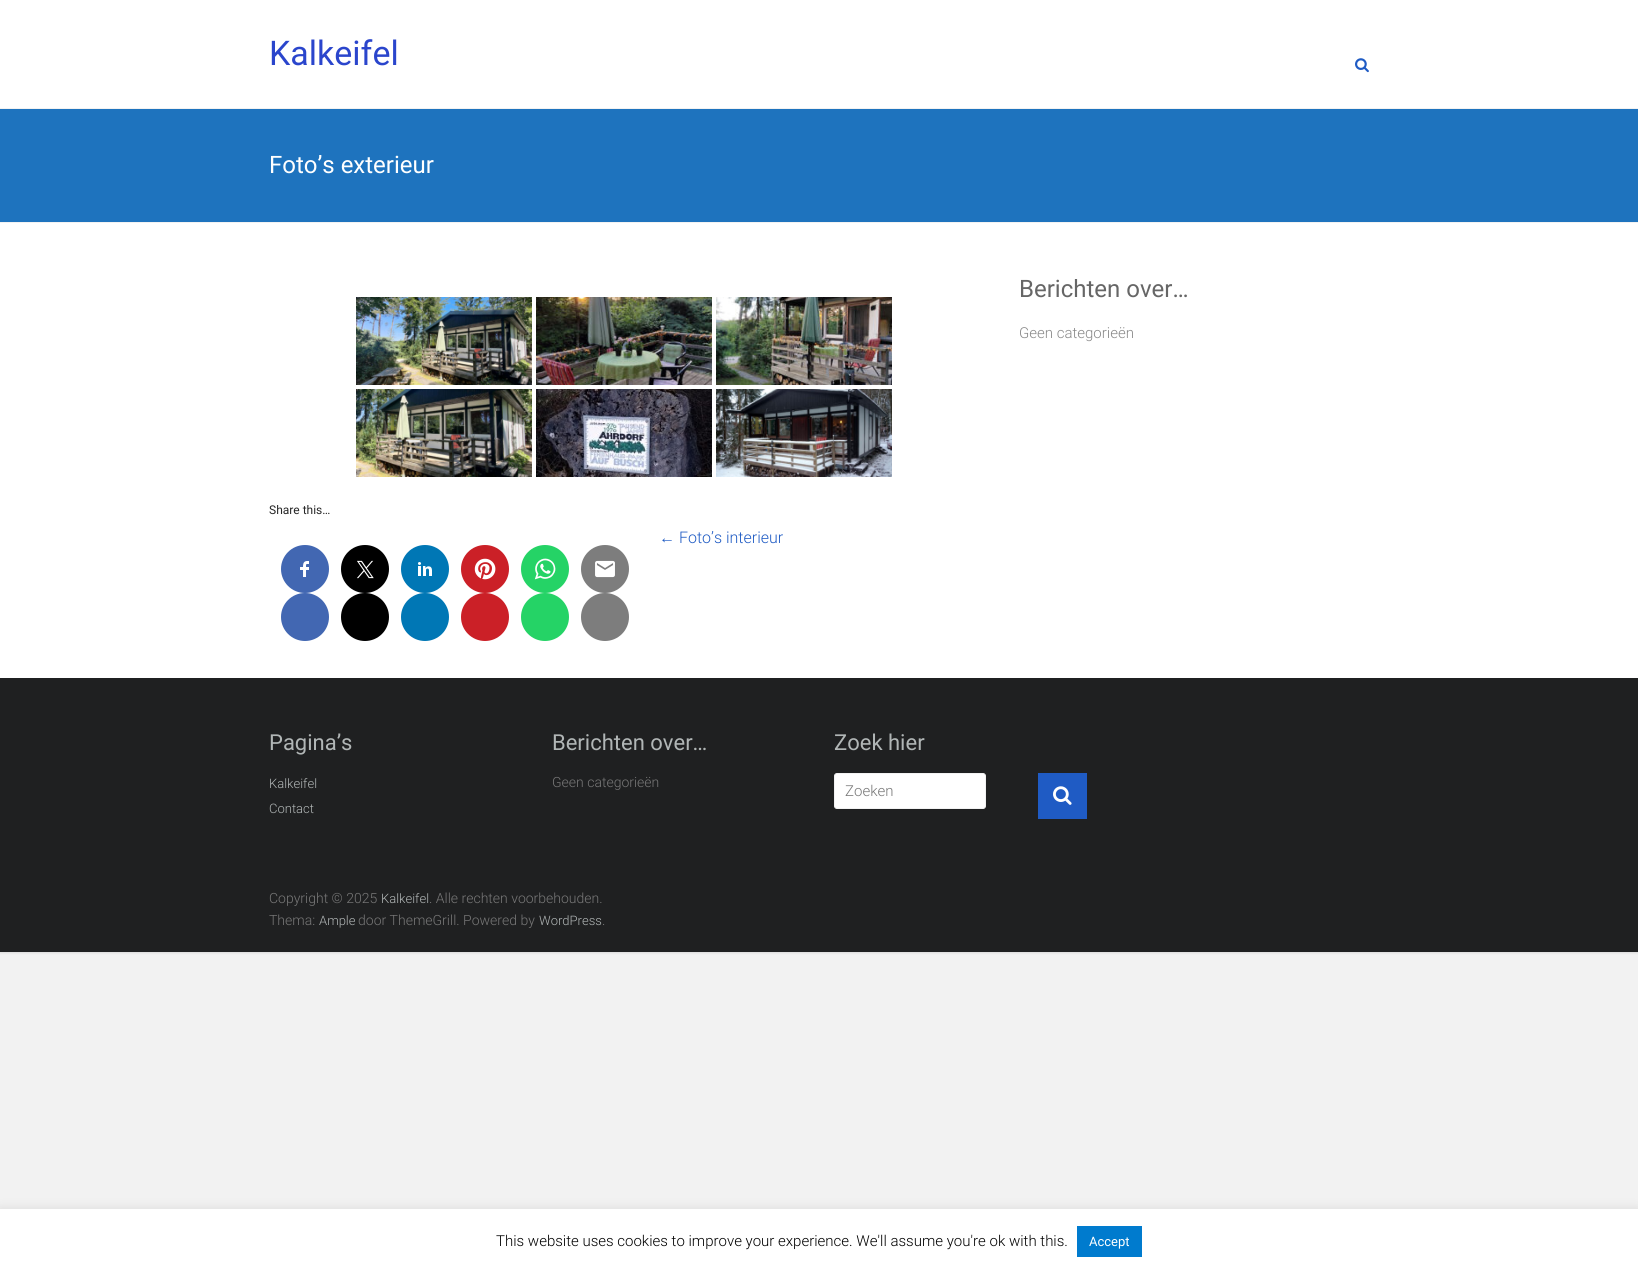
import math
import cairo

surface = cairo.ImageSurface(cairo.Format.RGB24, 1638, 1269)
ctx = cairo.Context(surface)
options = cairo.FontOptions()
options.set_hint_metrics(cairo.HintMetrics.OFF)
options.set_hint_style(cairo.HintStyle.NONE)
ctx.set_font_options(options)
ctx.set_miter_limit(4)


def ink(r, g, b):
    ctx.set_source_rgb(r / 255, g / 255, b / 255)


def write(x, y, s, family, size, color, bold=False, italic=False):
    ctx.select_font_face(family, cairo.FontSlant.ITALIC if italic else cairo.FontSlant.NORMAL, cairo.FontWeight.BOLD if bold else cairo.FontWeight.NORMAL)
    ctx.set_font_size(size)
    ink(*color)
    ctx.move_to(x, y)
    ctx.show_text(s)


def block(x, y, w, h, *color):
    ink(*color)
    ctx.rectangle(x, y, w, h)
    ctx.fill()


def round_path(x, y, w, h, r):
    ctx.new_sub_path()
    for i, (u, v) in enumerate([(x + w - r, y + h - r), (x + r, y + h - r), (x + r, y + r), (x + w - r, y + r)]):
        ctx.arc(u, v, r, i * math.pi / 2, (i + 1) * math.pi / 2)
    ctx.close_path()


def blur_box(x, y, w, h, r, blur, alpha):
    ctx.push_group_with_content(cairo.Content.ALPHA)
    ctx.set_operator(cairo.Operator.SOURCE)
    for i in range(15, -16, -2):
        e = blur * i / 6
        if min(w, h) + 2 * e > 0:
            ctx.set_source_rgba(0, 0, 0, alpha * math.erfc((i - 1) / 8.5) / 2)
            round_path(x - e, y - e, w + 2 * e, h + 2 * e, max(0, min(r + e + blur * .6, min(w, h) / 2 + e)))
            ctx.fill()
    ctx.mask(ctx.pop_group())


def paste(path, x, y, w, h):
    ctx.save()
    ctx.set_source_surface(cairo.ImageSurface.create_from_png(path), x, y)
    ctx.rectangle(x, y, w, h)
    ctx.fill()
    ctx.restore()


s1 = dict(family="Roboto", size=34, color=(42, 69, 204))
s2 = dict(family="Roboto", size=24, color=(255, 255, 255))
s3 = dict(family="Roboto", size=24, color=(102, 102, 102))
s4 = dict(family="Roboto Light", size=15, color=(136, 136, 136))
s5 = dict(family="Roboto", size=12, color=(39, 39, 39))
s6 = dict(family="Liberation Sans", size=16, color=(31, 91, 196))
s7 = dict(family="Roboto Light", size=16, color=(31, 91, 196))
s8 = dict(family="Roboto", size=22, color=(177, 182, 182))
s9 = dict(family="Roboto Light", size=13, color=(177, 182, 182))
s10 = dict(family="Roboto Light", size=14, color=(119, 119, 119))
s11 = dict(family="Roboto Light", size=15, color=(119, 119, 119))
s12 = dict(family="Roboto Light", size=15, color=(0, 0, 0))
s13 = dict(family="Roboto", size=13, color=(255, 255, 255))

ink(242, 242, 242)
ctx.paint()
ink(0, 0, 0)
blur_box(0, 1, 1638, 952, 0, 1, 0.1)
block(0, 0, 1638, 678, 255, 255, 255)
block(0, 108, 1638, 1, 242, 242, 242)
write(269, 65, "Kalkeifel", **s1)
paste("pic1.png", 1355, 58, 14, 15)
block(0, 109, 1638, 113, 30, 115, 190)
block(0, 222, 1638, 1, 242, 242, 242)
write(269, 173, "Foto’s exterieur", **s2)
write(1019, 297, "Berichten over…", **s3)
write(1019, 338, "Geen categorieën", **s4)
paste("pic2.png", 356, 297, 176, 88)
paste("pic3.png", 536, 297, 176, 88)
paste("pic4.png", 716, 297, 176, 88)
paste("pic5.png", 356, 389, 176, 88)
paste("pic6.png", 536, 389, 176, 88)
paste("pic7.png", 716, 389, 176, 88)
write(269, 514, "Share this…", **s5)
ink(66, 103, 178)
ctx.new_path()
ctx.arc(305, 569, 24, 0, 2 * math.pi)
ctx.fill()
paste("pic8.png", 300, 561, 9, 16)
ctx.arc(305, 617, 24, 0, 2 * math.pi)
ctx.fill()
ink(0, 0, 0)
ctx.arc(365, 569, 24, 0, 2 * math.pi)
ctx.fill()
paste("pic9.png", 357, 560, 17, 19)
ctx.arc(365, 617, 24, 0, 2 * math.pi)
ctx.fill()
ink(0, 119, 181)
ctx.arc(425, 569, 24, 0, 2 * math.pi)
ctx.fill()
paste("pic10.png", 418, 562, 14, 14)
ctx.arc(425, 617, 24, 0, 2 * math.pi)
ctx.fill()
ink(203, 32, 39)
ctx.arc(485, 569, 24, 0, 2 * math.pi)
ctx.fill()
paste("pic11.png", 474, 558, 22, 22)
ctx.arc(485, 617, 24, 0, 2 * math.pi)
ctx.fill()
ink(37, 211, 102)
ctx.arc(545, 569, 24, 0, 2 * math.pi)
ctx.fill()
paste("pic12.png", 534, 558, 22, 22)
ctx.arc(545, 617, 24, 0, 2 * math.pi)
ctx.fill()
ink(125, 125, 125)
ctx.arc(605, 569, 24, 0, 2 * math.pi)
ctx.fill()
paste("pic13.png", 595, 560, 20, 18)
ctx.arc(605, 617, 24, 0, 2 * math.pi)
ctx.fill()
write(659, 543, "←", **s6)
write(679, 543, "Foto’s interieur", **s7)
block(0, 678, 1638, 274, 31, 32, 33)
write(269, 750, "Pagina’s", **s8)
write(269, 788, "Kalkeifel", **s9)
write(269, 813, "Contact", **s9)
write(552, 750, "Berichten over…", **s8)
write(552, 787, "Geen categorieën", **s10)
write(834, 750, "Zoek hier", **s8)
ink(255, 255, 255)
round_path(834.5, 773.5, 151, 35, 2.5)
ctx.fill_preserve()
ink(242, 242, 242)
ctx.set_line_width(1)
ctx.stroke()
write(845, 796, "Zoeken", **s11)
block(1038, 773, 49, 46, 31, 91, 196)
paste("pic14.png", 1053, 786, 19, 19)
write(269, 903, "Copyright © 2025", **s10)
write(381, 903, "Kalkeifel", **s9)
write(429, 903, ". Alle rechten voorbehouden.", **s10)
write(269, 925, "Thema:", **s10)
write(319, 925, "Ample", **s9)
write(358, 925, "door ThemeGrill. Powered by", **s10)
write(539, 925, "WordPress", **s9)
write(602, 925, ".", **s10)
ink(172, 171, 171)
blur_box(0, 1208, 1638, 60, 0, 5, 0.3)
block(0, 1209, 1638, 60, 255, 255, 255)
write(496, 1246, "This website uses cookies to improve your experience. We'll assume you're ok with this.", **s12)
block(1077, 1226, 65, 31, 0, 123, 206)
write(1089, 1246, "Accept", **s13)
surface.write_to_png("screenshot.png")
